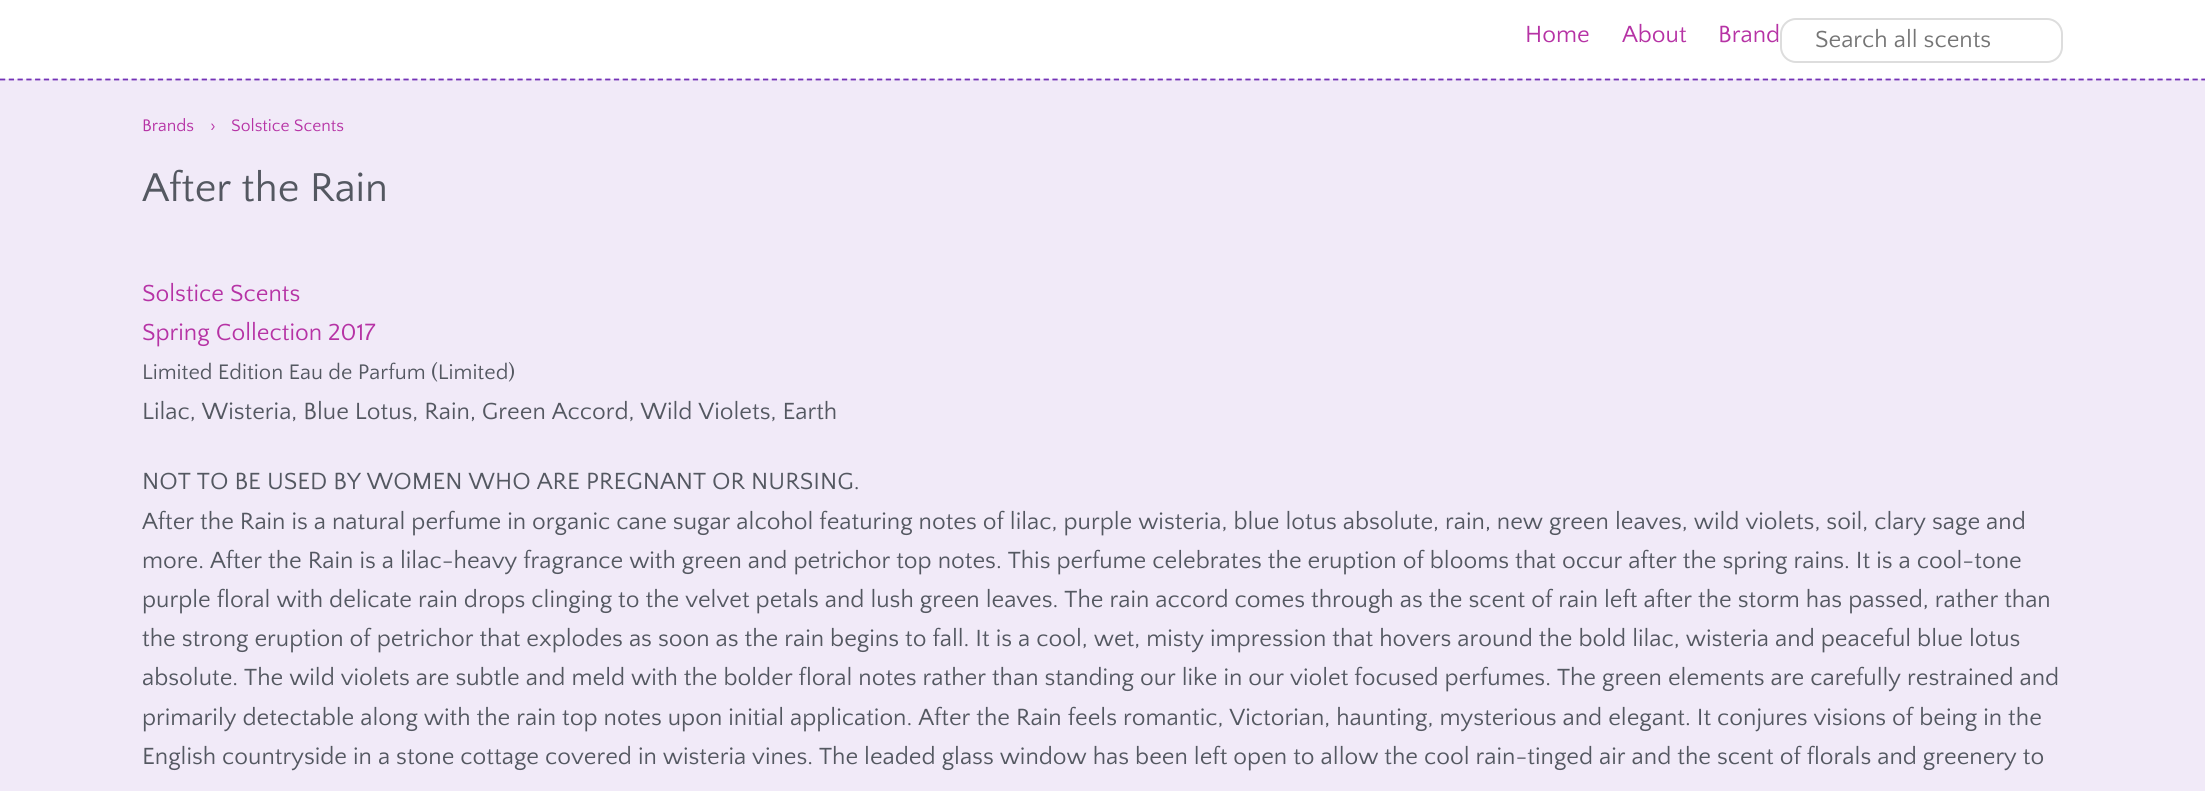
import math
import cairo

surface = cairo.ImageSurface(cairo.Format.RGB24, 2205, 791)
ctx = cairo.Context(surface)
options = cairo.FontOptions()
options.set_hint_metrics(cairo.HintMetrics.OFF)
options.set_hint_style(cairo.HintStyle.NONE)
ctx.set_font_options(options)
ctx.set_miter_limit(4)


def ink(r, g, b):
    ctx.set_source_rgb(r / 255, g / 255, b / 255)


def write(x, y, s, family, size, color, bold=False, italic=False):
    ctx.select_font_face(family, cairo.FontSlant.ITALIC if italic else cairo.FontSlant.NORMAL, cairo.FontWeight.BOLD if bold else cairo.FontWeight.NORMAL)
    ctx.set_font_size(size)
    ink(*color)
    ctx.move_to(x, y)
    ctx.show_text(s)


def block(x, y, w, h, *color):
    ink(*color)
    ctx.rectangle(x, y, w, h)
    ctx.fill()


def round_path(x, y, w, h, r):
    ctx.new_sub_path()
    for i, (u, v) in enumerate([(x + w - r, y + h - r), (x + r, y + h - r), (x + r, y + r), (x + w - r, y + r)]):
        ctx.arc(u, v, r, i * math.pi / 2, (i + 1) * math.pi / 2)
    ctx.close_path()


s1 = dict(family="Quattrocento Sans", size=24.5, color=(182, 51, 165))
s2 = dict(family="Quattrocento Sans", size=24.5, color=(117, 117, 117))
s3 = dict(family="Quattrocento Sans", size=17.5, color=(182, 51, 165))
s4 = dict(family="Quattrocento Sans", size=42, color=(84, 88, 97))
s5 = dict(family="Quattrocento Sans", size=22, color=(84, 88, 97))
s6 = dict(family="Quattrocento Sans", size=24.5, color=(84, 88, 97))

ink(255, 255, 255)
ctx.paint()
write(1525, 42, "Home", **s1)
write(1622, 42, "About", **s1)
write(1718, 42, "Brand", **s1)
round_path(1781, 19, 281, 43, 15)
ink(221, 221, 221)
ctx.stroke()
write(1815, 47, "Search all scents", **s2)
block(0, 79, 2205, 712, 241, 234, 248)
ctx.new_path()
ctx.move_to(0, 79.5)
ctx.line_to(2205, 79.5)
ink(116, 51, 182)
ctx.set_line_width(1.8)
ctx.set_dash([5.25, 3.52])
ctx.stroke()
write(142, 131, "Brands", **s3)
write(210, 131, "›", **s3)
write(231, 131, "Solstice Scents", **s3)
write(142, 201, "After the Rain", **s4)
write(142, 301, "Solstice Scents", **s1)
write(142, 340, "Spring Collection 2017", **s1)
write(142, 379, "Limited Edition Eau de Parfum (Limited)", **s5)
write(142, 419, "Lilac, Wisteria, Blue Lotus, Rain, Green Accord, Wild Violets, Earth", **s6)
write(142, 489, "NOT TO BE USED BY WOMEN WHO ARE PREGNANT OR NURSING.", **s6)
write(142, 529, "After the Rain is a natural perfume in organic cane sugar alcohol featuring notes of lilac, purple wisteria, blue lotus absolute, rain, new green leaves, wild violets, soil, clary sage and", **s6)
write(142, 568, "more. After the Rain is a lilac-heavy fragrance with green and petrichor top notes. This perfume celebrates the eruption of blooms that occur after the spring rains. It is a cool-tone", **s6)
write(142, 607, "purple floral with delicate rain drops clinging to the velvet petals and lush green leaves. The rain accord comes through as the scent of rain left after the storm has passed, rather than", **s6)
write(142, 646, "the strong eruption of petrichor that explodes as soon as the rain begins to fall. It is a cool, wet, misty impression that hovers around the bold lilac, wisteria and peaceful blue lotus", **s6)
write(142, 685, "absolute. The wild violets are subtle and meld with the bolder floral notes rather than standing our like in our violet focused perfumes. The green elements are carefully restrained and", **s6)
write(142, 725, "primarily detectable along with the rain top notes upon initial application. After the Rain feels romantic, Victorian, haunting, mysterious and elegant. It conjures visions of being in the", **s6)
write(142, 764, "English countryside in a stone cottage covered in wisteria vines. The leaded glass window has been left open to allow the cool rain-tinged air and the scent of florals and greenery to", **s6)
surface.write_to_png("screenshot.png")
